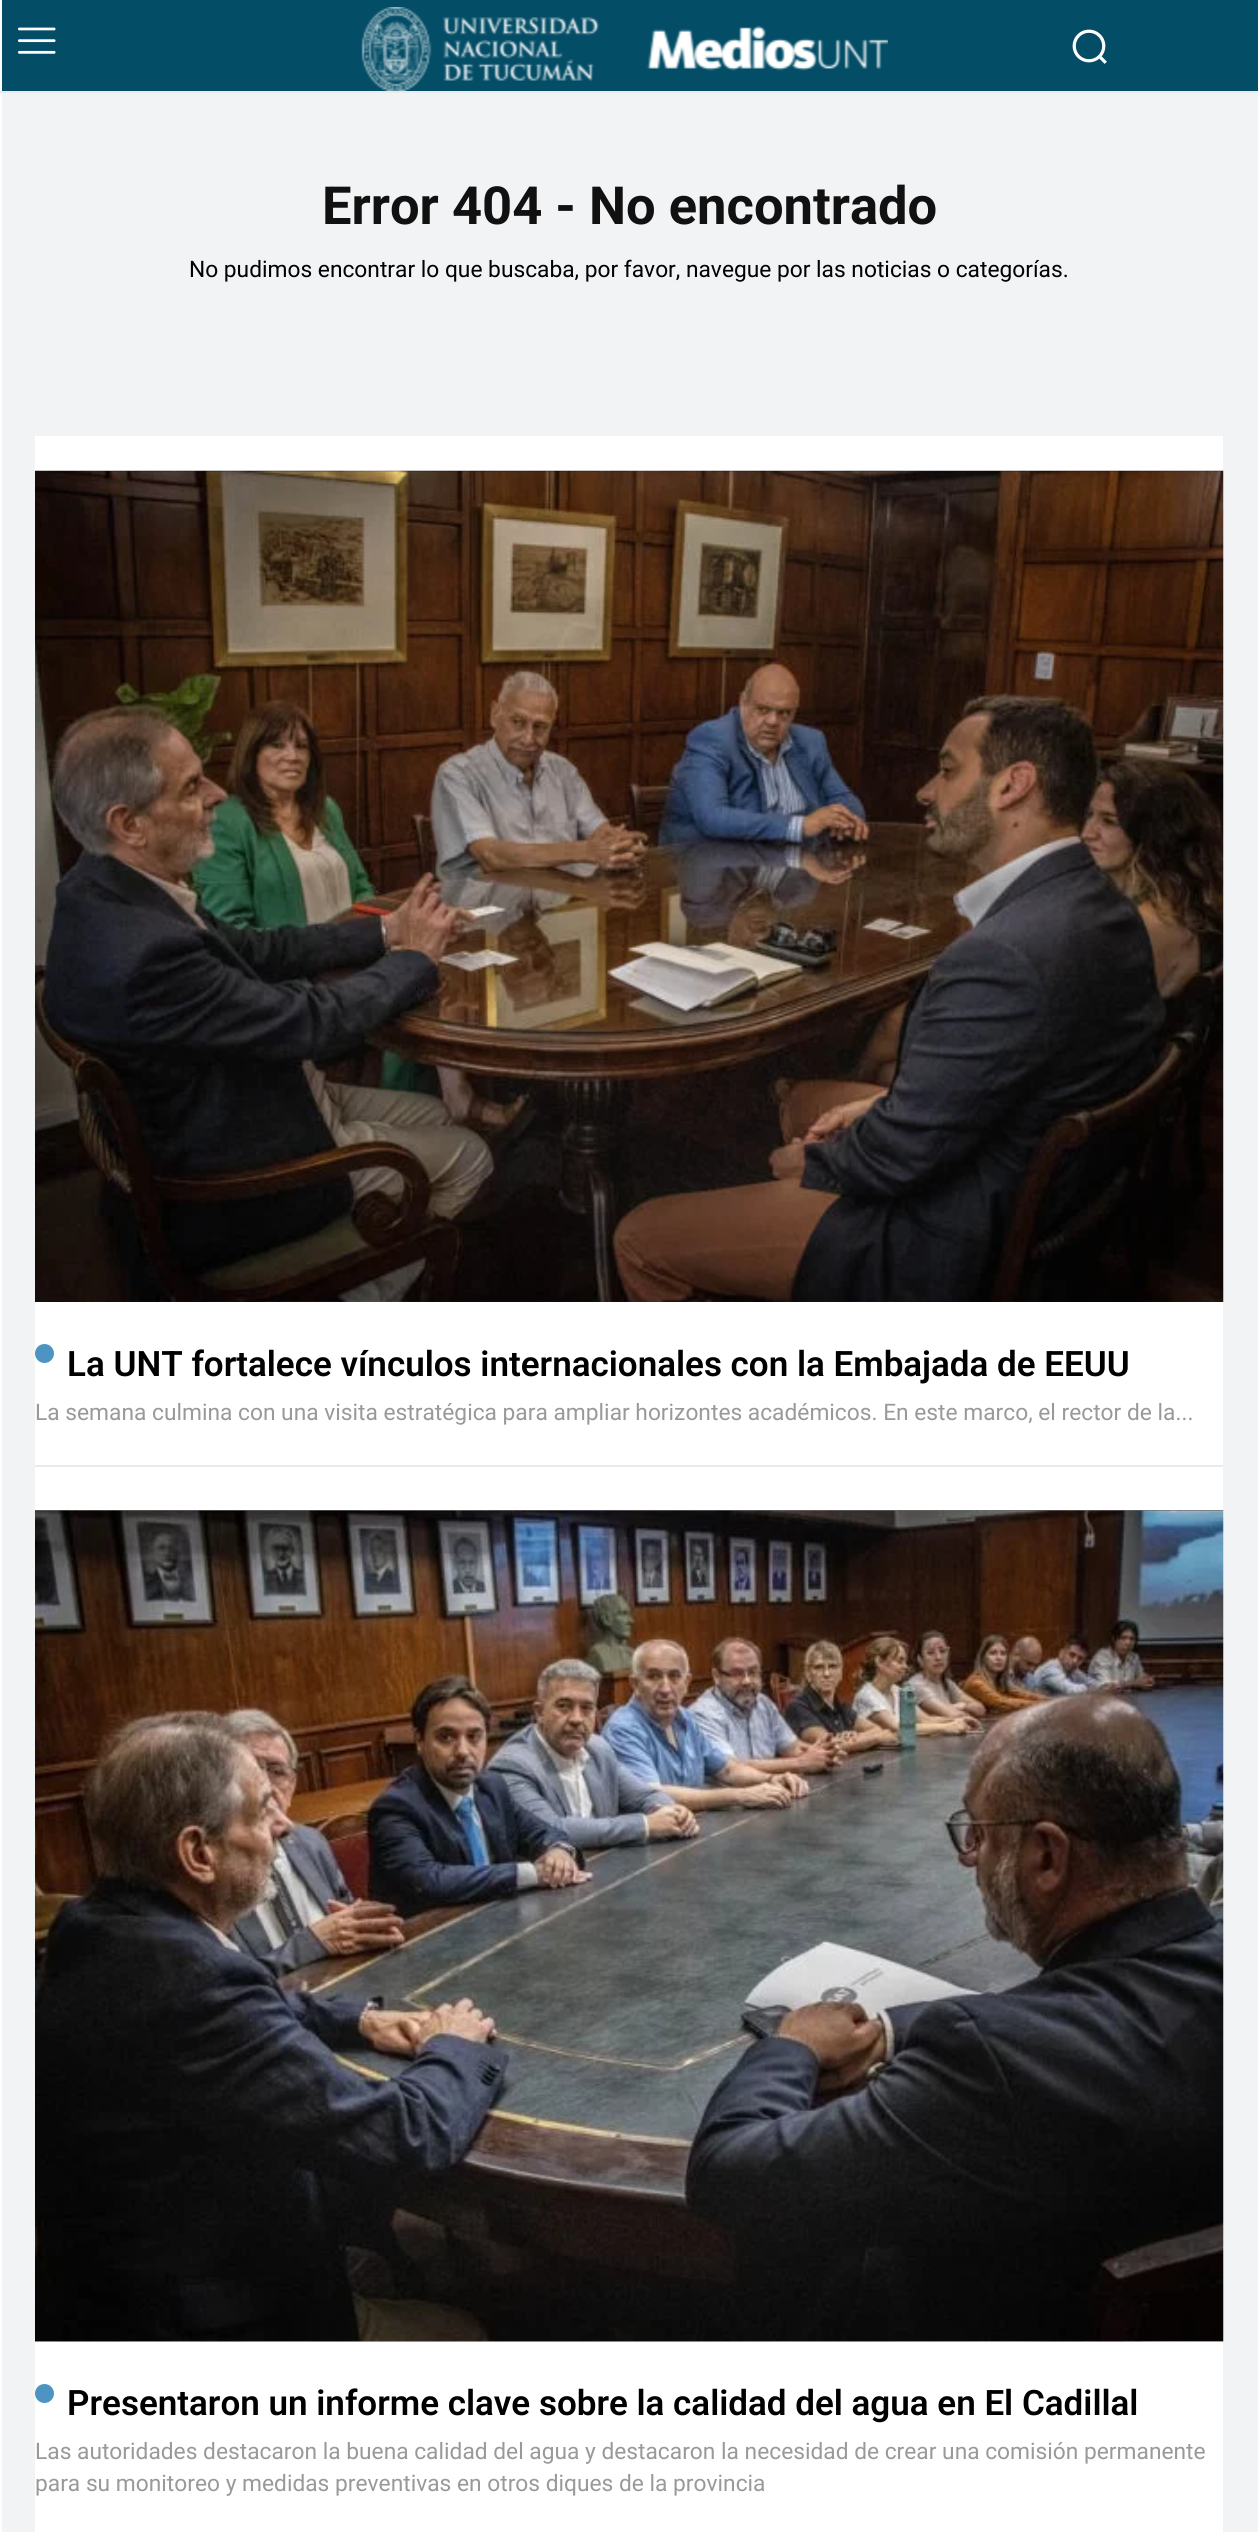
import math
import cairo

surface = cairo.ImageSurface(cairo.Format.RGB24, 1258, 2532)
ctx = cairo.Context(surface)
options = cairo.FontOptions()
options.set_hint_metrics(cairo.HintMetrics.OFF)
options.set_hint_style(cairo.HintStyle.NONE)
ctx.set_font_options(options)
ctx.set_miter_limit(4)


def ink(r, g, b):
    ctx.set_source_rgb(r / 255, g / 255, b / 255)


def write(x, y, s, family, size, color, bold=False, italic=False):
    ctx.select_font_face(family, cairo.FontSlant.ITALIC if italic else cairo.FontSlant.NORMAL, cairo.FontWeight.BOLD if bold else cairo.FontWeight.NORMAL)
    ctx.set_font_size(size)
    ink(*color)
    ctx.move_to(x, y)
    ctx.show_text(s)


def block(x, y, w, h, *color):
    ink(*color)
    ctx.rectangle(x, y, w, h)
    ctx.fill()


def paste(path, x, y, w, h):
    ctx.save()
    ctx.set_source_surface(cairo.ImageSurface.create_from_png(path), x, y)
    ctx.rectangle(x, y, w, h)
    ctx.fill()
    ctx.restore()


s1 = dict(family="Roboto", size=52.5, color=(17, 17, 17), bold=True)
s2 = dict(family="Roboto", size=22.75, color=(0, 0, 0))
s3 = dict(family="Roboto SemiBold", size=35, color=(0, 0, 0))
s4 = dict(family="Roboto", size=22.75, color=(153, 153, 153))

ink(255, 255, 255)
ctx.paint()
block(0, 91, 1258, 2, 234, 234, 234)
block(2, 0, 1256, 91, 3, 77, 102)
paste("pic1.png", 18, 27, 38, 27)
paste("pic2.png", 361, 7, 527, 84)
paste("pic3.png", 1072, 29, 35, 35)
block(2, 93, 1256, 2439, 242, 243, 245)
write(322, 224, "Error 404 - No encontrado", **s1)
write(189, 277, "No pudimos encontrar lo que buscaba, por favor, navegue por las noticias o categorías.", **s2)
block(35, 436, 1188, 2096, 255, 255, 255)
block(35, 1465, 1188, 2, 234, 234, 234)
paste("pic4.png", 35, 470, 1189, 832)
ink(78, 148, 194)
ctx.arc(44.5, 1353.5, 9.5, 0, 2 * math.pi)
ctx.fill()
write(67, 1376, "La UNT fortalece vínculos internacionales con la Embajada de EEUU", **s3)
write(35, 1420, "La semana culmina con una visita estratégica para ampliar horizontes académicos. En este marco, el rector de la...", **s4)
paste("pic5.png", 35, 1510, 1189, 832)
ink(78, 148, 194)
ctx.arc(44.5, 2393.5, 9.5, 0, 2 * math.pi)
ctx.fill()
write(67, 2415, "Presentaron un informe clave sobre la calidad del agua en El Cadillal", **s3)
write(35, 2459, "Las autoridades destacaron la buena calidad del agua y destacaron la necesidad de crear una comisión permanente", **s4)
write(35, 2491, "para su monitoreo y medidas preventivas en otros diques de la provincia", **s4)
surface.write_to_png("screenshot.png")
